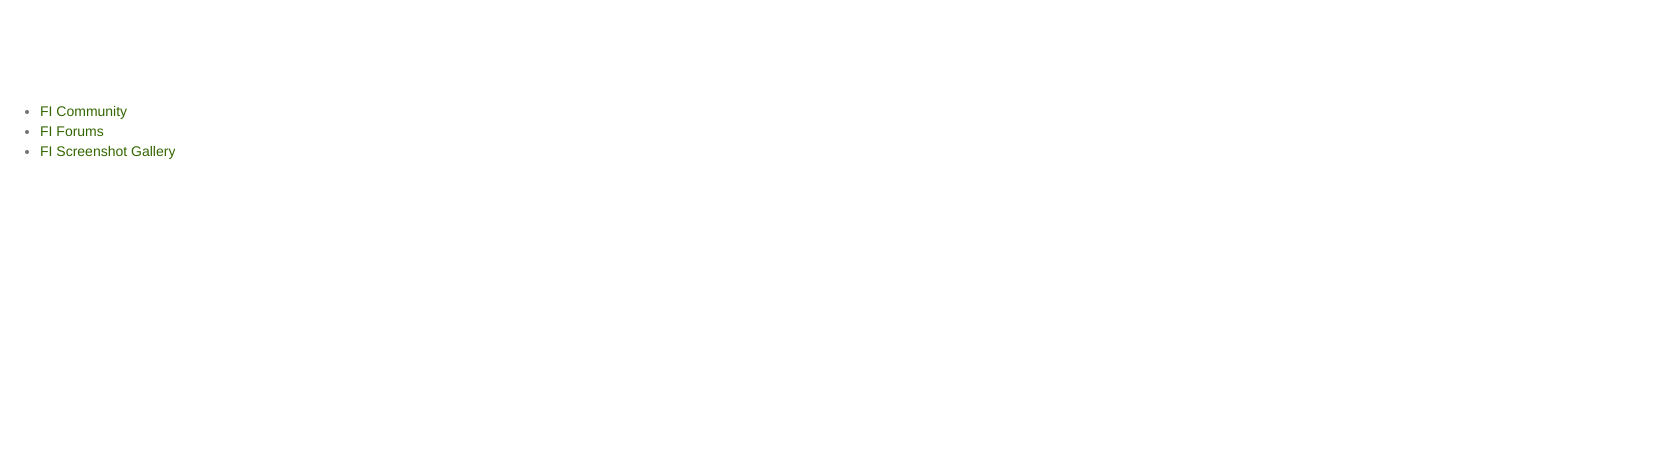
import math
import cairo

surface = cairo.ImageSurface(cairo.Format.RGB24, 1665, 454)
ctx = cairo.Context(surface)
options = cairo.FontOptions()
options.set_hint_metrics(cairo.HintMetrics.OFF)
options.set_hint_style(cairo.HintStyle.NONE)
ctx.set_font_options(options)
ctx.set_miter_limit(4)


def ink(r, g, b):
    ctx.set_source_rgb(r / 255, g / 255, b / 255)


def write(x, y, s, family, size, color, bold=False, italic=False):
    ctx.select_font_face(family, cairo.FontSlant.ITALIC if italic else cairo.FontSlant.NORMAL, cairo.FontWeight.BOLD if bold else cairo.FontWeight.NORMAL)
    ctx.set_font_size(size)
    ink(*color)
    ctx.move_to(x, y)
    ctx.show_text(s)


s1 = dict(family="Liberation Sans", size=14, color=(51, 102, 0))

ink(255, 255, 255)
ctx.paint()
ink(113, 115, 118)
ctx.arc(27, 112, 2, 0, 2 * math.pi)
ctx.fill()
write(40, 116, "FI Community", **s1)
ink(113, 115, 118)
ctx.new_path()
ctx.arc(27, 132, 2, 0, 2 * math.pi)
ctx.fill()
write(40, 136, "FI Forums", **s1)
ink(113, 115, 118)
ctx.new_path()
ctx.arc(27, 152, 2, 0, 2 * math.pi)
ctx.fill()
write(40, 156, "FI Screenshot Gallery", **s1)
surface.write_to_png("screenshot.png")
